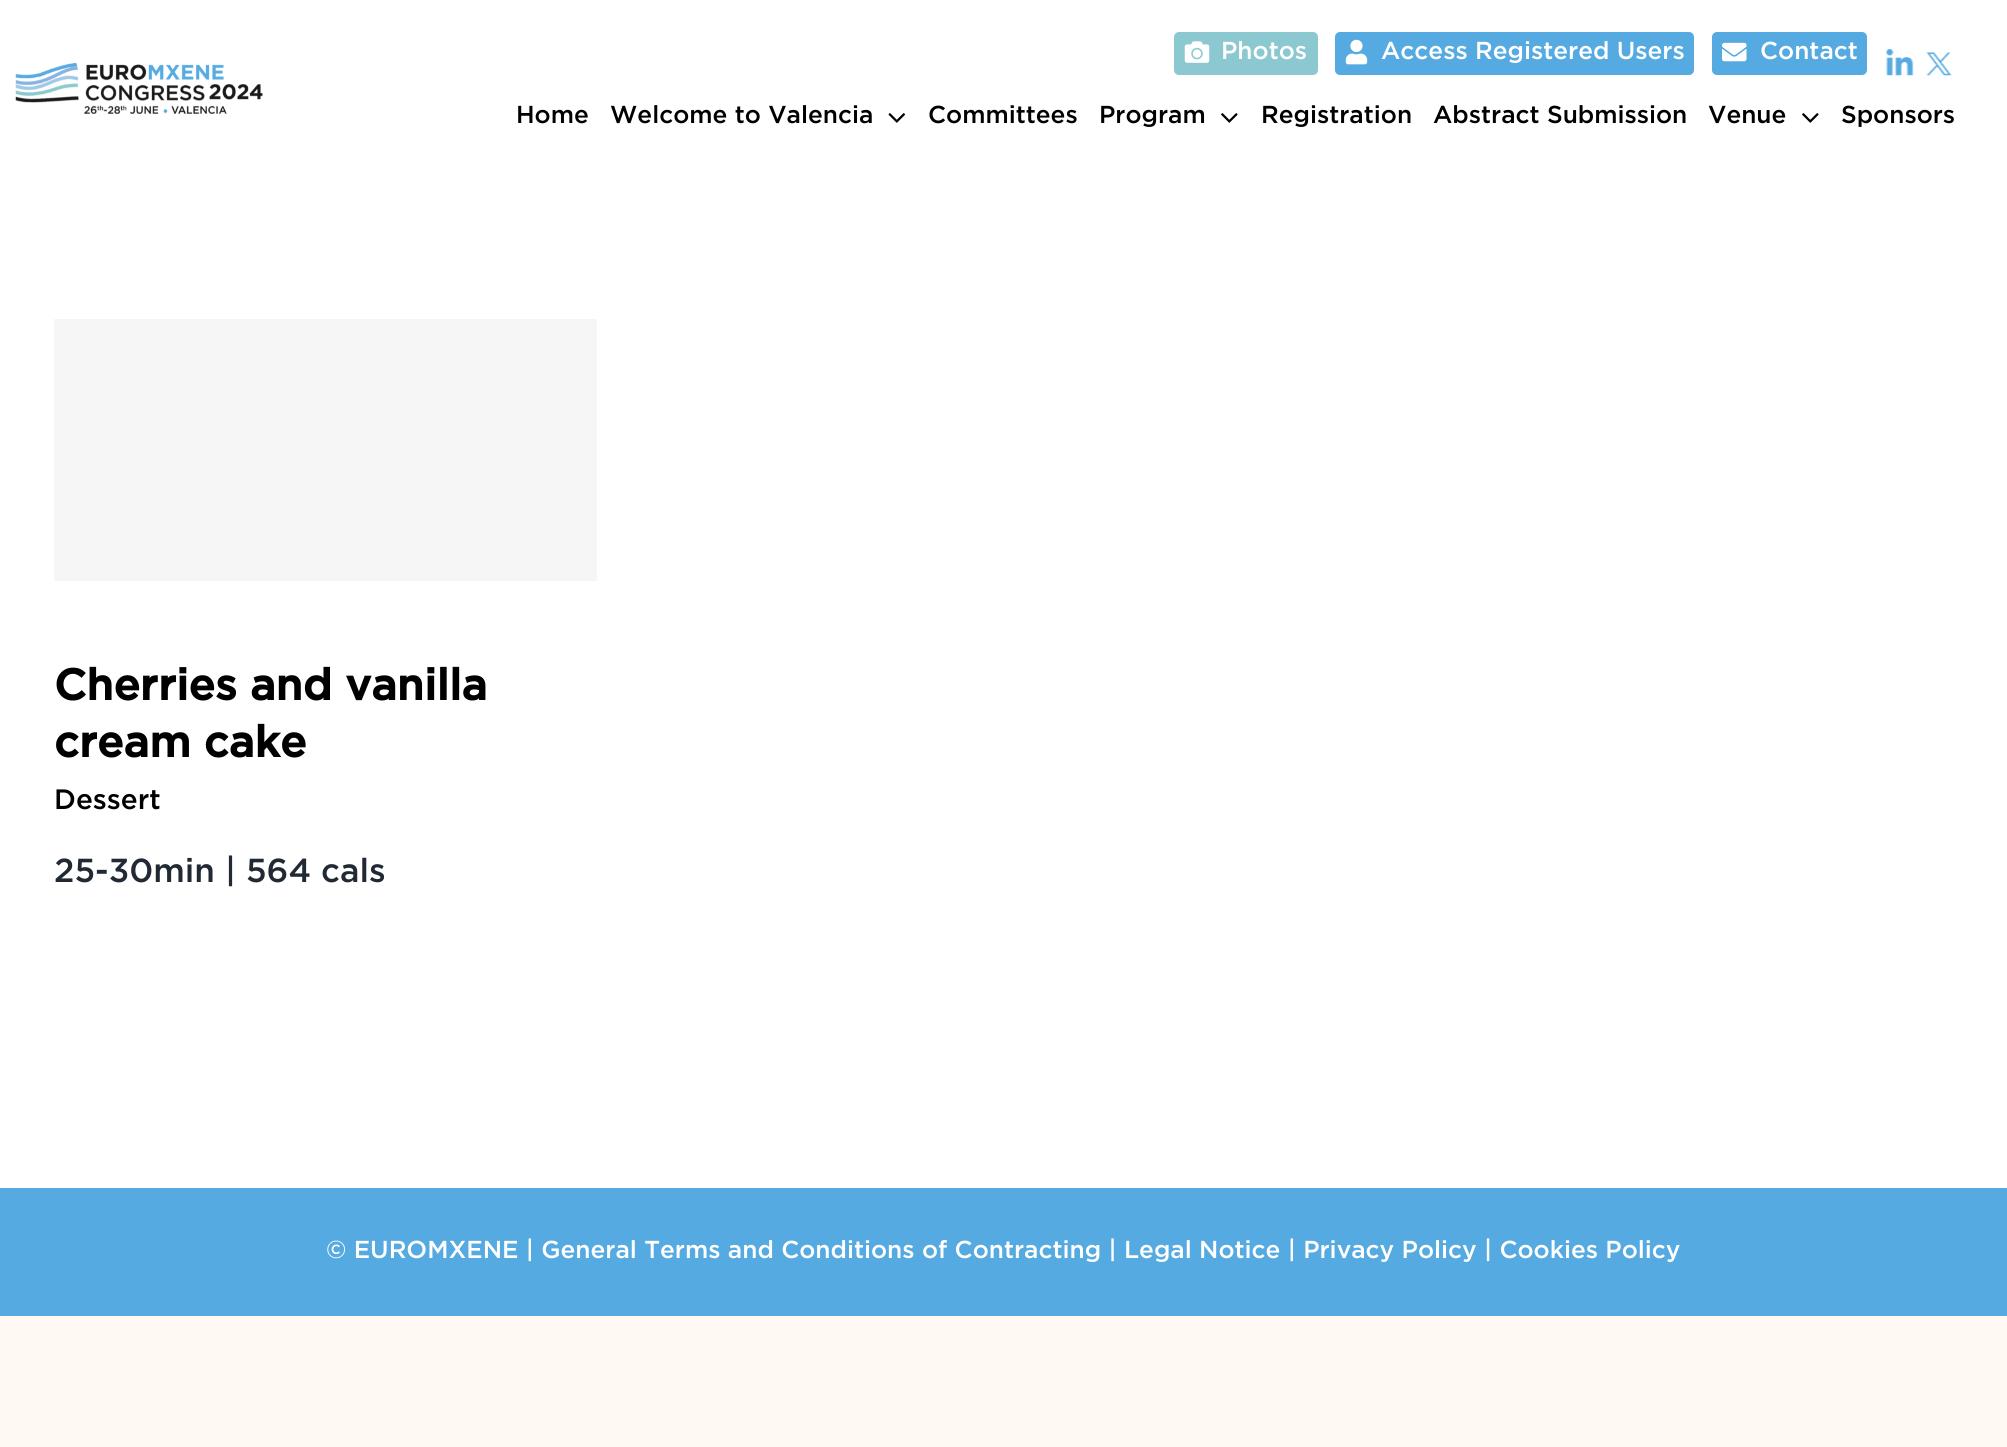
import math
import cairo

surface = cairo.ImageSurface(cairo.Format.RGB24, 2007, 1447)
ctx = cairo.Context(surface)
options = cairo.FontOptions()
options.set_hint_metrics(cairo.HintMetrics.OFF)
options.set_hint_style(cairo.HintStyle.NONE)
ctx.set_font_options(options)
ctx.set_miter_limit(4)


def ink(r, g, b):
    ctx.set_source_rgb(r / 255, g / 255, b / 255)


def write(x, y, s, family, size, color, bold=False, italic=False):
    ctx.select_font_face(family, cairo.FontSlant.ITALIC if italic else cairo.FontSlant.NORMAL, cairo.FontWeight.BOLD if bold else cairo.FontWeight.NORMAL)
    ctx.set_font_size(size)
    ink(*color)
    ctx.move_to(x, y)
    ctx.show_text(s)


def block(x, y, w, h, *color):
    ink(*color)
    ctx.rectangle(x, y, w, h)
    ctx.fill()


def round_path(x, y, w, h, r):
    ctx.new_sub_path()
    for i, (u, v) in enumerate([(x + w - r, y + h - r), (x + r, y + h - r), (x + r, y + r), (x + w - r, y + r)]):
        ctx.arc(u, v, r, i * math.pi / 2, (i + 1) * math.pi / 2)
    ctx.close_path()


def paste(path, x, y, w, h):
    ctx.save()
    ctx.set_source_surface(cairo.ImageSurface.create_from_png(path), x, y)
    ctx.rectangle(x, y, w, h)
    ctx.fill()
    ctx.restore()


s1 = dict(family="Gotham Medium", size=24.5, color=(255, 255, 255))
s2 = dict(family="Gotham Medium", size=24.5, color=(0, 0, 0))
s3 = dict(family="Gotham", size=43.75, color=(0, 0, 0), bold=True)
s4 = dict(family="Gotham Medium", size=28, color=(0, 0, 0))
s5 = dict(family="Gotham Medium", size=33.25, color=(33, 41, 52))

ink(255, 249, 244)
ctx.paint()
block(0, 0, 2007, 1188, 255, 255, 255)
paste("pic1.png", 15, 63, 248, 51)
ink(140, 200, 208)
round_path(1174, 32, 144, 43, 5)
ctx.fill()
paste("pic2.png", 1184, 41, 26, 22)
write(1221, 59, "Photos", **s1)
ink(85, 170, 225)
round_path(1335, 32, 359, 43, 5)
ctx.fill()
paste("pic3.png", 1345, 39, 23, 26)
write(1381, 59, "Access Registered Users", **s1)
ink(85, 170, 225)
round_path(1712, 32, 155, 43, 5)
ctx.fill()
paste("pic4.png", 1722, 42, 25, 20)
write(1760, 59, "Contact", **s1)
paste("pic5.png", 1886, 49, 28, 27)
paste("pic6.png", 1926, 52, 26, 24)
write(516, 123, "Home", **s2)
write(610, 123, "Welcome to Valencia", **s2)
paste("pic7.png", 888, 113, 17, 10)
write(928, 123, "Committees", **s2)
write(1099, 123, "Program", **s2)
paste("pic8.png", 1221, 113, 17, 10)
write(1261, 123, "Registration", **s2)
write(1433, 123, "Abstract Submission", **s2)
write(1708, 123, "Venue", **s2)
paste("pic8.png", 1802, 113, 17, 10)
write(1841, 123, "Sponsors", **s2)
block(54, 319, 543, 262, 246, 246, 246)
write(54, 700, "Cherries and vanilla", **s3)
write(54, 757, "cream cake", **s3)
write(54, 809, "Dessert", **s4)
write(54, 882, "25-30min | 564 cals", **s5)
block(0, 1188, 2007, 128, 85, 170, 225)
write(326, 1258, "© EUROMXENE | General Terms and Conditions of Contracting | Legal Notice | Privacy Policy | Cookies Policy", **s1)
surface.write_to_png("screenshot.png")
